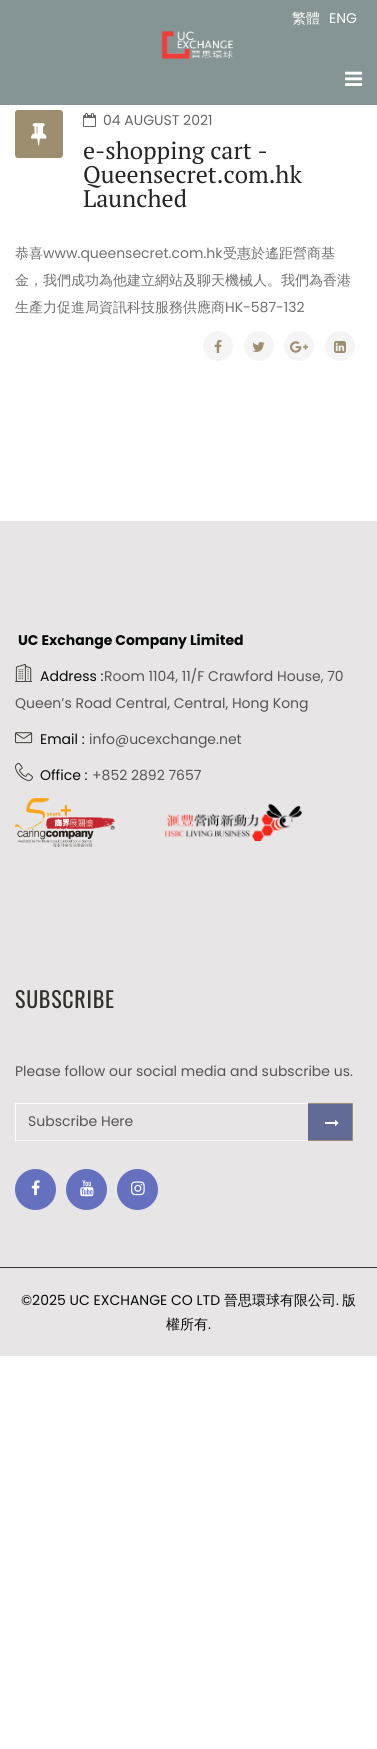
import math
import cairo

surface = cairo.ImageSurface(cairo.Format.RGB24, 377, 1749)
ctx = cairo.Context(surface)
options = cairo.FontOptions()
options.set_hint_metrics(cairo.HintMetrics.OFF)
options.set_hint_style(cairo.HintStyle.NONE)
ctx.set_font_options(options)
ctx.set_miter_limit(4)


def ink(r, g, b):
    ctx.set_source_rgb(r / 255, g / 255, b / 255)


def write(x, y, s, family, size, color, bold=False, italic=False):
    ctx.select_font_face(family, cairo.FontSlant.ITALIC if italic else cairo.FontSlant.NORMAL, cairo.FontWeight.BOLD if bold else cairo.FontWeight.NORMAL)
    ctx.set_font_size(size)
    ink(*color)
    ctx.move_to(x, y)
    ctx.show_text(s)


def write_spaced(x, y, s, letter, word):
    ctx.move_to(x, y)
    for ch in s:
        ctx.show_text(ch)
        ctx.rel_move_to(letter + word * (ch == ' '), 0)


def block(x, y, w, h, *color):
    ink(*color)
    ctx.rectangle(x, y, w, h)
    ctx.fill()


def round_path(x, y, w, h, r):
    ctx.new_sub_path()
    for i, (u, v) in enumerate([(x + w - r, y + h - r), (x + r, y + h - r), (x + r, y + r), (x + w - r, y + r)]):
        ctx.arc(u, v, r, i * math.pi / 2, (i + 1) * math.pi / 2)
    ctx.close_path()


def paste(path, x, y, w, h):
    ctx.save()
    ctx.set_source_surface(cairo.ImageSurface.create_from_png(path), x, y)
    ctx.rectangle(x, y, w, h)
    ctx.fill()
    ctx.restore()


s1 = dict(family="WenQuanYi Zen Hei Medium", size=14, color=(255, 255, 255))
s2 = dict(family="Poppins", size=14, color=(255, 255, 255))
s3 = dict(family="Poppins", size=14, color=(102, 102, 102))
s4 = dict(family="PT Serif", size=24, color=(37, 37, 37))
s5 = dict(family="WenQuanYi Zen Hei Medium", size=14, color=(112, 112, 112))
s6 = dict(family="Poppins", size=14, color=(112, 112, 112))
s7 = dict(family="Poppins", size=14, color=(8, 9, 9), bold=True)
s8 = dict(family="Poppins", size=14, color=(8, 9, 9))
s9 = dict(family="Poppins", size=14, color=(85, 85, 85))
s10 = dict(family="WenQuanYi Zen Hei Medium", size=14, color=(8, 9, 9))

ink(255, 255, 255)
ctx.paint()
block(0, 0, 377, 105, 133, 148, 148)
write(292, 23, "繁體", **s1)
write(329, 23, "ENG", **s2)
paste("pic1.png", 345, 71, 18, 15)
paste("pic2.png", 161, 31, 72, 28)
ink(157, 142, 112)
round_path(15, 110, 48, 48, 3)
ctx.fill()
paste("pic3.png", 31, 123, 16, 23)
paste("pic4.png", 83, 113, 13, 14)
write(103, 125, "04 AUGUST 2021", **s3)
write(83, 159, "e-shopping cart -", **s4)
write(83, 183, "Queensecret.com.hk", **s4)
write(83, 207, "Launched", **s4)
write(15, 258, "恭喜", **s5)
write(43, 258, "www.queensecret.com.hk", **s6)
write(223, 258, "受惠於遙距營商基", **s5)
write(15, 285, "金，我們成功為他建立網站及聊天機械人。我們為香港", **s5)
write(15, 312, "生產力促進局資訊科技服務供應商", **s5)
write(225, 312, "HK-587-132", **s6)
ink(245, 245, 245)
ctx.new_path()
ctx.arc(218, 346, 15, 0, 2 * math.pi)
ctx.fill()
paste("pic5.png", 214, 340, 8, 13)
ctx.arc(259, 346, 15, 0, 2 * math.pi)
ctx.fill()
paste("pic6.png", 252, 342, 13, 10)
ctx.arc(299, 346, 15, 0, 2 * math.pi)
ctx.fill()
paste("pic7.png", 290, 341, 18, 12)
ctx.arc(340, 346, 15, 0, 2 * math.pi)
ctx.fill()
paste("pic8.png", 334, 341, 12, 12)
block(0, 521, 377, 746, 231, 229, 229)
write(18, 645, "UC Exchange Company Limited", **s7)
paste("pic9.png", 15, 663, 18, 19)
write(40, 681, "Address :", **s8)
write(104, 681, "Room 1104, 11/F Crawford House, 70", **s9)
write(15, 708, "Queen’s Road Central, Central, Hong Kong", **s9)
paste("pic10.png", 15, 732, 18, 12)
write(40, 744, "Email :", **s8)
write(89, 744, "info@ucexchange.net", **s9)
paste("pic11.png", 15, 762, 18, 19)
write(40, 780, "Office :", **s8)
write(92, 780, "+852 2892 7657", **s9)
paste("pic12.png", 15, 798, 100, 49)
paste("pic13.png", 165, 804, 138, 38)
ctx.select_font_face("Oswald")
ctx.set_font_size(22)
ink(50, 48, 44)
write_spaced(15, 1008, "SUBSCRIBE", 0.75, 0)
write(15, 1076, "Please follow our social media and subscribe us.", **s9)
ctx.rectangle(15.5, 1103.5, 337, 37)
ink(255, 255, 255)
ctx.set_line_width(1)
ctx.stroke()
write(28, 1126, "Subscribe Here", **s9)
block(308, 1104, 44, 36, 97, 107, 149)
block(308, 1103, 45, 1, 157, 142, 112)
block(352, 1103, 1, 38, 157, 142, 112)
block(308, 1140, 45, 1, 157, 142, 112)
paste("pic14.png", 325, 1120, 14, 6)
ink(101, 112, 190)
ctx.arc(35.5, 1189.5, 20.5, 0, 2 * math.pi)
ctx.fill()
paste("pic15.png", 31, 1180, 9, 16)
ctx.arc(86.5, 1189.5, 20.5, 0, 2 * math.pi)
ctx.fill()
paste("pic16.png", 80, 1180, 14, 17)
ctx.arc(137.5, 1189.5, 20.5, 0, 2 * math.pi)
ctx.fill()
paste("pic17.png", 131, 1181, 14, 15)
block(0, 1268, 377, 88, 231, 229, 229)
block(0, 1267, 377, 1, 51, 51, 51)
write(21, 1305, "©2025 UC EXCHANGE CO LTD", **s8)
write(224, 1305, "晉思環球有限公司", **s10)
write(336, 1305, ".", **s8)
write(342, 1305, "版", **s10)
write(166, 1329, "權所有", **s10)
write(208, 1329, ".", **s8)
surface.write_to_png("screenshot.png")
